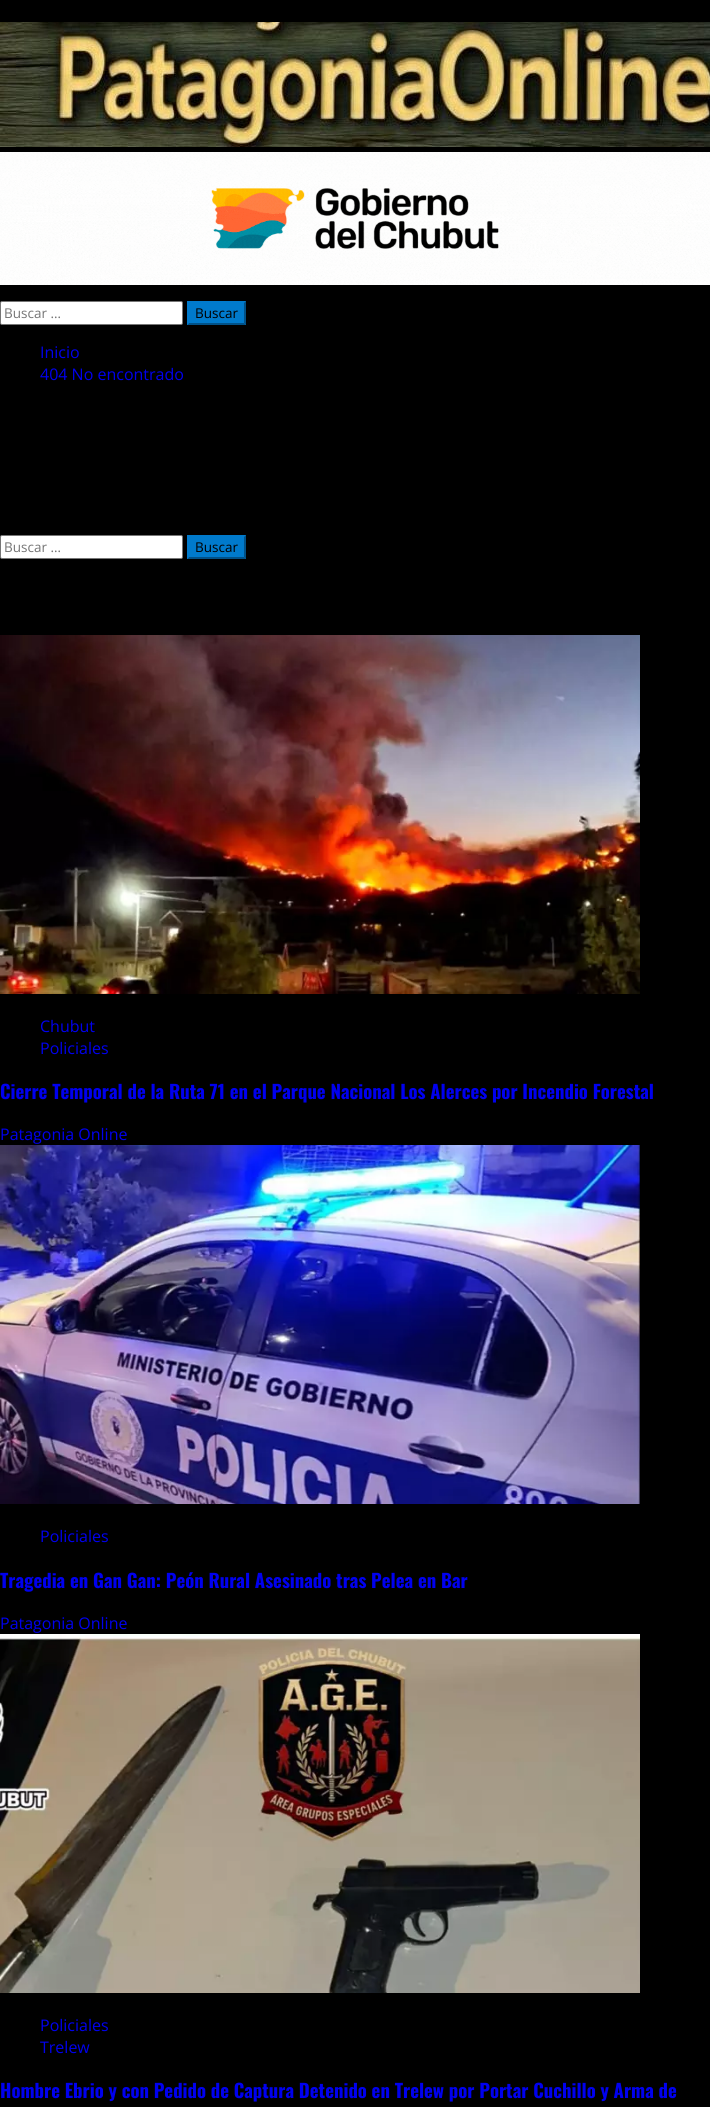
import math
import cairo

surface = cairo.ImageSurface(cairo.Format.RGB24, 710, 2107)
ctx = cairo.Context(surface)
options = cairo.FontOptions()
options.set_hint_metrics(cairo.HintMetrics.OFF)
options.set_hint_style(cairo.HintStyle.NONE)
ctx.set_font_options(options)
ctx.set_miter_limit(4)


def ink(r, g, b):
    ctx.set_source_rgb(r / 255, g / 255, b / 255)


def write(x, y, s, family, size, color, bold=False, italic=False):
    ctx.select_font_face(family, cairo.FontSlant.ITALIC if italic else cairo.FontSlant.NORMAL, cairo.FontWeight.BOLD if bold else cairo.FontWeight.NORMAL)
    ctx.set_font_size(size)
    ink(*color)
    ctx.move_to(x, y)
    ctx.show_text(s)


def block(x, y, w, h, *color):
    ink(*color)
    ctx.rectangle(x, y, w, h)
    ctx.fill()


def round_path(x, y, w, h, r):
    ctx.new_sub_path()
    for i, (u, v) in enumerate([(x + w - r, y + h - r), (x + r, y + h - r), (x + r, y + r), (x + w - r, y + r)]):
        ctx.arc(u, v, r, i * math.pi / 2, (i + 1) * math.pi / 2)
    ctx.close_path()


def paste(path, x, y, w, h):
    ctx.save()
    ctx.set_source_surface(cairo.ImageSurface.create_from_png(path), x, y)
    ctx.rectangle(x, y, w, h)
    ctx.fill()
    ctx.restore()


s1 = dict(family="Open Sans", size=13.5, color=(117, 117, 117))
s2 = dict(family="Open Sans", size=13.5, color=(0, 0, 0))
s3 = dict(family="Open Sans", size=16, color=(0, 0, 238))
s4 = dict(family="Oswald", size=18.7, color=(0, 0, 238), bold=True)

ink(0, 0, 0)
ctx.paint()
paste("pic1.png", 0, 22, 710, 125)
paste("pic2.png", 0, 152, 710, 133)
ink(255, 255, 255)
round_path(0.5, 301.5, 182, 23, 1.5)
ctx.fill_preserve()
ink(118, 118, 118)
ctx.set_line_width(1)
ctx.stroke()
write(4, 318, "Buscar …", **s1)
block(187, 301, 59, 24, 0, 122, 204)
ink(0, 81, 136)
ctx.new_path()
ctx.move_to(246, 301)
ctx.line_to(246, 325)
ctx.line_to(244, 323)
ctx.line_to(244, 303)
ctx.close_path()
ctx.fill()
ctx.new_path()
ctx.move_to(246, 325)
ctx.line_to(187, 325)
ctx.line_to(189, 323)
ctx.line_to(244, 323)
ctx.close_path()
ctx.fill()
ink(0, 122, 204)
ctx.new_path()
ctx.move_to(187, 325)
ctx.line_to(187, 301)
ctx.line_to(189, 303)
ctx.line_to(189, 323)
ctx.close_path()
ctx.fill()
write(195, 318, "Buscar", **s2)
write(40, 358, "Inicio", **s3)
write(40, 380, "404 No encontrado", **s3)
ink(255, 255, 255)
round_path(0.5, 535.5, 182, 23, 1.5)
ctx.fill_preserve()
ink(118, 118, 118)
ctx.stroke()
write(4, 552, "Buscar …", **s1)
block(187, 535, 59, 24, 0, 122, 204)
ink(0, 81, 136)
ctx.new_path()
ctx.move_to(246, 535)
ctx.line_to(246, 559)
ctx.line_to(244, 557)
ctx.line_to(244, 537)
ctx.close_path()
ctx.fill()
ctx.new_path()
ctx.move_to(246, 559)
ctx.line_to(187, 559)
ctx.line_to(189, 557)
ctx.line_to(244, 557)
ctx.close_path()
ctx.fill()
ink(0, 122, 204)
ctx.new_path()
ctx.move_to(187, 559)
ctx.line_to(187, 535)
ctx.line_to(189, 537)
ctx.line_to(189, 557)
ctx.close_path()
ctx.fill()
write(195, 552, "Buscar", **s2)
paste("pic3.png", 0, 635, 640, 359)
write(40, 1032, "Chubut", **s3)
write(40, 1054, "Policiales", **s3)
write(0, 1099, "Cierre Temporal de la Ruta 71 en el Parque Nacional Los Alerces por Incendio Forestal", **s4)
write(0, 1140, "Patagonia Online", **s3)
paste("pic4.png", 0, 1145, 640, 359)
write(40, 1542, "Policiales", **s3)
write(0, 1588, "Tragedia en Gan Gan: Peón Rural Asesinado tras Pelea en Bar", **s4)
write(0, 1629, "Patagonia Online", **s3)
paste("pic5.png", 0, 1634, 640, 359)
write(40, 2031, "Policiales", **s3)
write(40, 2053, "Trelew", **s3)
write(0, 2098, "Hombre Ebrio y con Pedido de Captura Detenido en Trelew por Portar Cuchillo y Arma de", **s4)
surface.write_to_png("screenshot.png")
